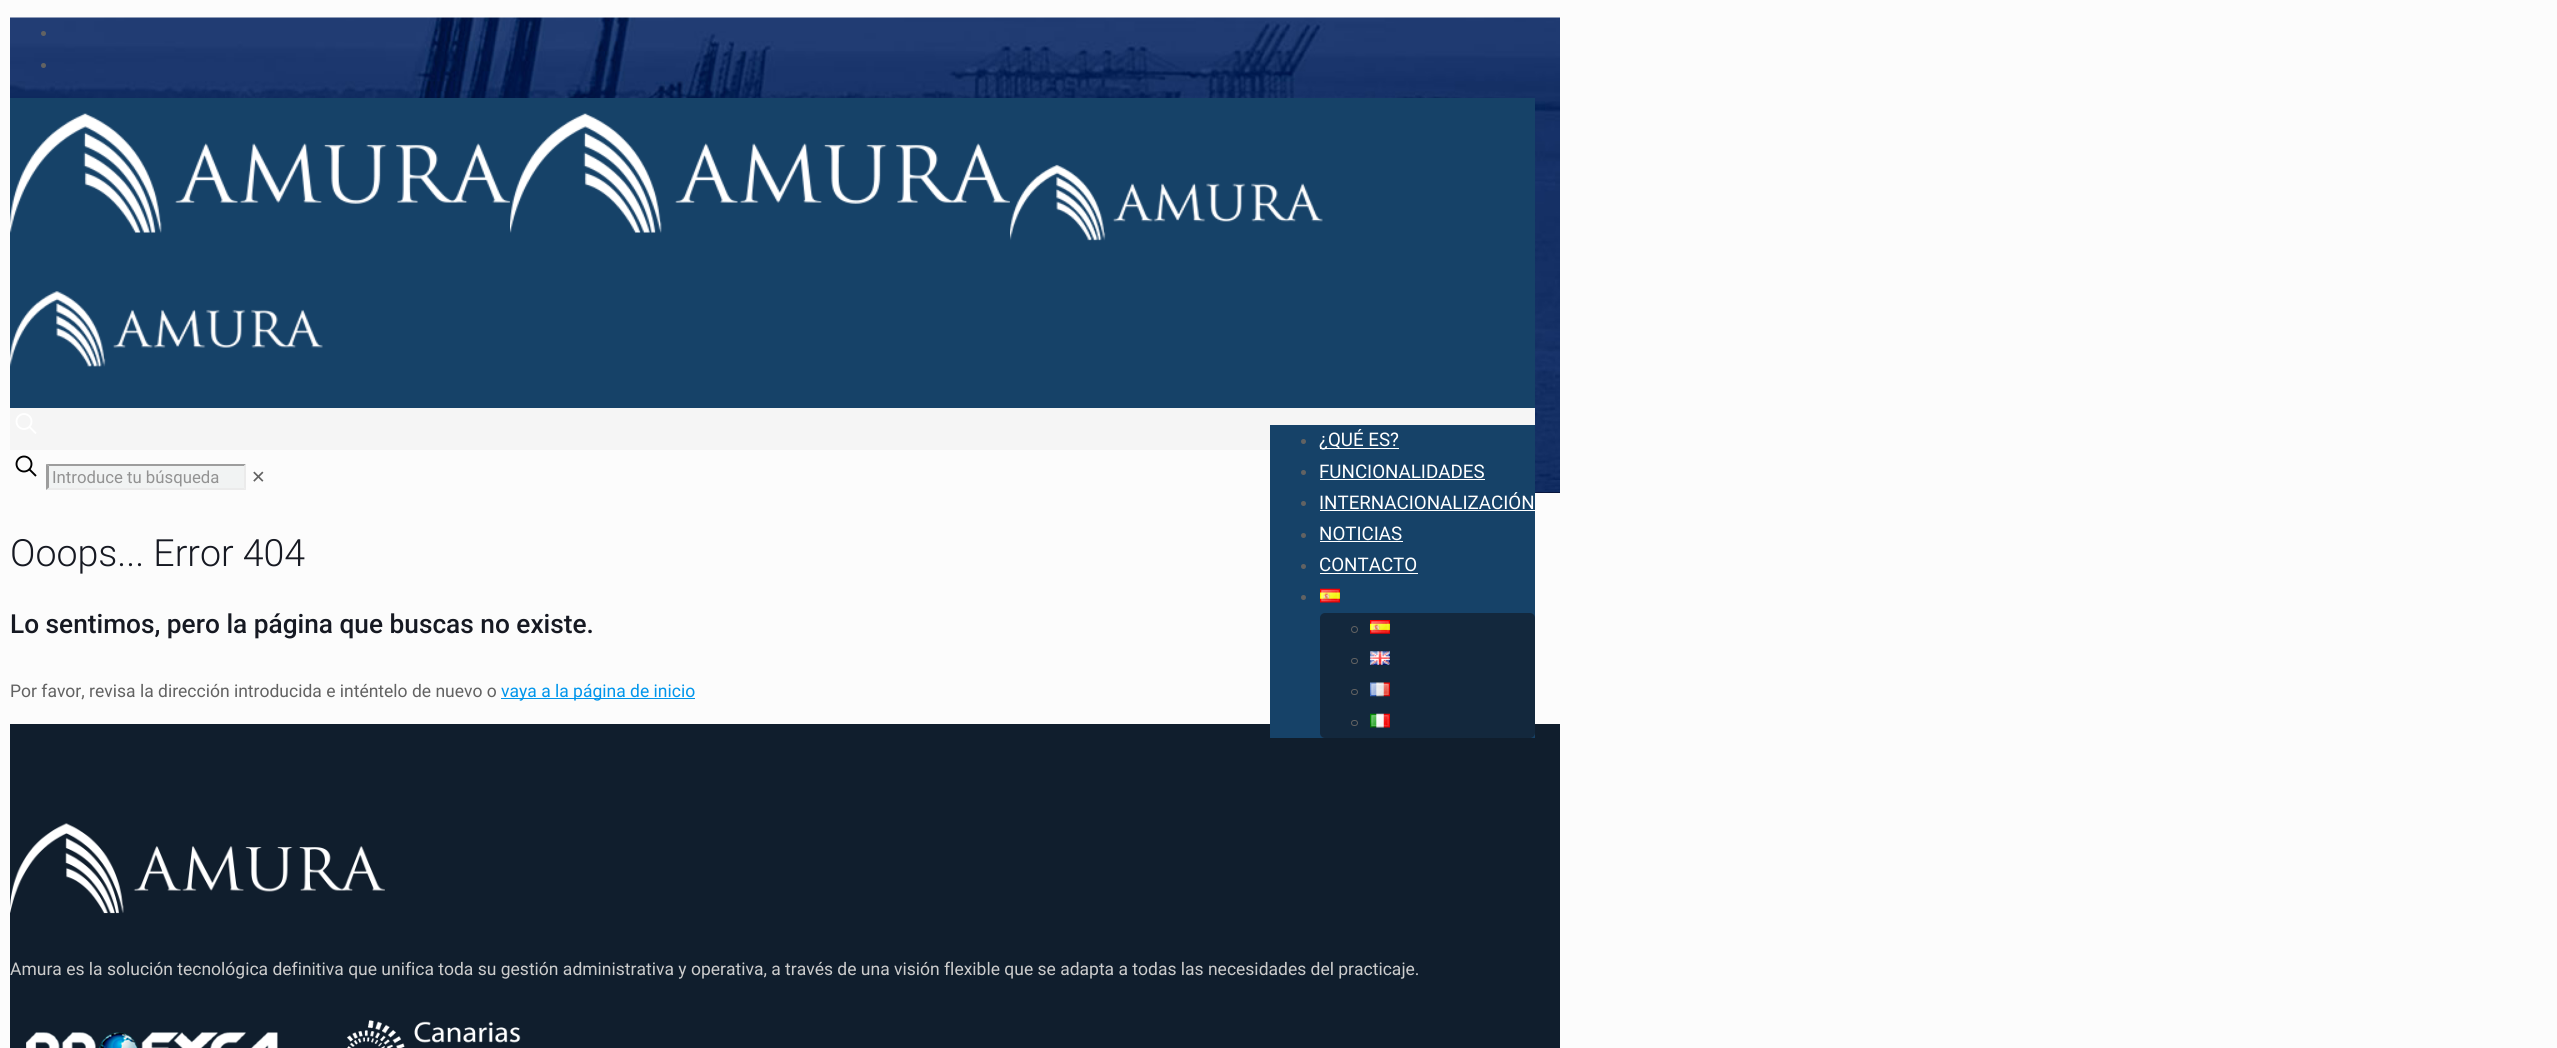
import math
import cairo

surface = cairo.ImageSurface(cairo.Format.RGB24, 2557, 1048)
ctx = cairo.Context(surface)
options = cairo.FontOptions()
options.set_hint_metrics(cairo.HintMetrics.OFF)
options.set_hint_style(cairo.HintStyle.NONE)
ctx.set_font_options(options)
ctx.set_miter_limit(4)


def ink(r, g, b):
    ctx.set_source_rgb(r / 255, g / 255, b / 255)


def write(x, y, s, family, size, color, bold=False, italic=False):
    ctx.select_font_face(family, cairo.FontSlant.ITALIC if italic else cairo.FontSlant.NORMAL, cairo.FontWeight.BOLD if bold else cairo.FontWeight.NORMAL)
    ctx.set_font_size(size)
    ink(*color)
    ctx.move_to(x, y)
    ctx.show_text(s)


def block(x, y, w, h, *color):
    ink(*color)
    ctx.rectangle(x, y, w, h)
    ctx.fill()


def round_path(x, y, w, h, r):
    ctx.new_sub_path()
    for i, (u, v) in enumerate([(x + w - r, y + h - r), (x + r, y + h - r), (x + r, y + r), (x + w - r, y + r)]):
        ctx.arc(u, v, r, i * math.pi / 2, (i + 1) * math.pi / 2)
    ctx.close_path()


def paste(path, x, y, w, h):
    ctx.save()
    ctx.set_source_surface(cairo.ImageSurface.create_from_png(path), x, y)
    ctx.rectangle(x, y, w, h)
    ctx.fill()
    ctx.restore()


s1 = dict(family="Roboto", size=16.75, color=(146, 146, 146))
s2 = dict(family="DejaVu Sans", size=17.5, color=(98, 98, 98))
s3 = dict(family="Roboto", size=18.75, color=(255, 255, 255))
s4 = dict(family="Roboto Light", size=37.5, color=(22, 25, 34))
s5 = dict(family="Roboto Medium", size=26.25, color=(22, 25, 34))
s6 = dict(family="Roboto", size=17.5, color=(98, 98, 98))
s7 = dict(family="Roboto", size=17.5, color=(0, 149, 235))
s8 = dict(family="Roboto", size=17.5, color=(204, 204, 204))

ink(252, 252, 252)
ctx.paint()
block(1535, 492, 25, 1, 0, 1, 25)
paste("pic1.png", 10, 17, 1550, 476)
ink(98, 98, 98)
ctx.arc(43.5, 33.5, 2.5, 0, 2 * math.pi)
ctx.fill()
ctx.arc(43.5, 65.5, 2.5, 0, 2 * math.pi)
ctx.fill()
block(10, 408, 1525, 42, 245, 245, 245)
ctx.arc(24, 421.5, 7.5, 0, 2 * math.pi)
ink(255, 255, 255)
ctx.set_line_width(1.9)
ctx.stroke()
ctx.new_path()
ctx.move_to(29.5, 427)
ctx.line_to(36, 433.5)
ctx.stroke()
block(10, 450, 1260, 43, 252, 252, 252)
ctx.arc(24, 464, 7.5, 0, 2 * math.pi)
ink(0, 0, 0)
ctx.stroke()
ctx.new_path()
ctx.move_to(29.5, 469.5)
ctx.line_to(36, 476)
ctx.stroke()
block(46, 464, 200, 26, 241, 243, 243)
ink(157, 157, 157)
ctx.new_path()
ctx.move_to(46, 464)
ctx.line_to(246, 464)
ctx.line_to(244, 466)
ctx.line_to(49, 466)
ctx.close_path()
ctx.fill()
ink(235, 235, 235)
ctx.new_path()
ctx.move_to(246, 464)
ctx.line_to(246, 490)
ctx.line_to(244, 487.5)
ctx.line_to(244, 466)
ctx.close_path()
ctx.fill()
ctx.new_path()
ctx.move_to(246, 490)
ctx.line_to(46, 490)
ctx.line_to(49, 488)
ctx.line_to(244, 488)
ctx.close_path()
ctx.fill()
ink(157, 157, 157)
ctx.new_path()
ctx.move_to(46, 490)
ctx.line_to(46, 464)
ctx.line_to(49, 466)
ctx.line_to(49, 487.5)
ctx.close_path()
ctx.fill()
write(52, 483, "Introduce tu búsqueda", **s1)
write(251, 483, "✕", **s2)
block(10, 98, 1525, 310, 22, 66, 104)
paste("pic2.png", 10, 113, 500, 120)
paste("pic3.png", 510, 113, 500, 120)
paste("pic4.png", 1010, 164, 313, 77)
paste("pic5.png", 10, 291, 313, 76)
block(10, 724, 1550, 324, 16, 30, 45)
block(1270, 425, 265, 313, 22, 66, 104)
ink(98, 98, 98)
ctx.arc(1303.5, 441.5, 2.5, 0, 2 * math.pi)
ctx.fill()
block(1320, 448, 79, 1, 255, 255, 255)
write(1319, 446, "¿QUÉ ES?", **s3)
ink(98, 98, 98)
ctx.new_path()
ctx.arc(1303.5, 472.5, 2.5, 0, 2 * math.pi)
ctx.fill()
write(1319, 478, "FUNCIONALIDADES", **s3)
block(1320, 479, 165, 1, 255, 255, 255)
ink(98, 98, 98)
ctx.new_path()
ctx.arc(1303.5, 503.5, 2.5, 0, 2 * math.pi)
ctx.fill()
write(1319, 509, "INTERNACIONALIZACIÓN", **s3)
block(1320, 510, 215, 1, 255, 255, 255)
ink(98, 98, 98)
ctx.new_path()
ctx.arc(1303.5, 535.5, 2.5, 0, 2 * math.pi)
ctx.fill()
write(1319, 540, "NOTICIAS", **s3)
block(1320, 541, 83, 1, 255, 255, 255)
ink(98, 98, 98)
ctx.new_path()
ctx.arc(1303.5, 566.5, 2.5, 0, 2 * math.pi)
ctx.fill()
write(1319, 571, "CONTACTO", **s3)
block(1320, 573, 98, 1, 255, 255, 255)
ink(98, 98, 98)
ctx.new_path()
ctx.arc(1303.5, 597.5, 2.5, 0, 2 * math.pi)
ctx.fill()
paste("pic6.png", 1320, 588, 20, 15)
ink(19, 40, 61)
round_path(1320, 613, 215, 125, 5)
ctx.fill()
ctx.arc(1354.5, 629.5, 3, 0, 2 * math.pi)
ink(98, 98, 98)
ctx.set_line_width(1)
ctx.stroke()
paste("pic7.png", 1370, 620, 20, 14)
round_path(1351.5, 658.5, 6, 5, 2.5)
ctx.stroke()
paste("pic8.png", 1370, 651, 20, 14)
round_path(1351.5, 689.5, 6, 5, 2.5)
ctx.stroke()
paste("pic9.png", 1370, 682, 20, 15)
round_path(1351.5, 720.5, 6, 5, 2.5)
ctx.stroke()
paste("pic10.png", 1370, 713, 20, 15)
write(10, 566, "Ooops... Error 404", **s4)
write(10, 633, "Lo sentimos, pero la página que buscas no existe.", **s5)
write(10, 697, "Por favor, revisa la dirección introducida e inténtelo de nuevo o", **s6)
block(501, 698, 194, 1, 0, 149, 235)
write(501, 697, "vaya a la página de inicio", **s7)
paste("pic11.png", 10, 823, 375, 91)
write(10, 975, "Amura es la solución tecnológica definitiva que unifica toda su gestión administrativa y operativa, a través de una visión flexible que se adapta a todas las necesidades del practicaje.", **s8)
paste("pic12.png", 26, 1020, 495, 28)
surface.write_to_png("screenshot.png")
